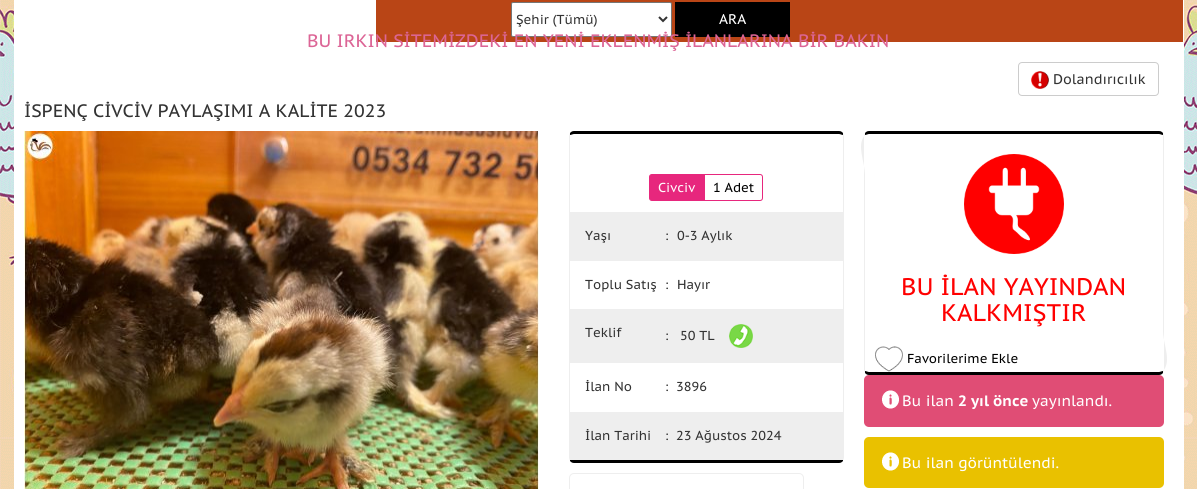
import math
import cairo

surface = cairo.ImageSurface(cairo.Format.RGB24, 1197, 489)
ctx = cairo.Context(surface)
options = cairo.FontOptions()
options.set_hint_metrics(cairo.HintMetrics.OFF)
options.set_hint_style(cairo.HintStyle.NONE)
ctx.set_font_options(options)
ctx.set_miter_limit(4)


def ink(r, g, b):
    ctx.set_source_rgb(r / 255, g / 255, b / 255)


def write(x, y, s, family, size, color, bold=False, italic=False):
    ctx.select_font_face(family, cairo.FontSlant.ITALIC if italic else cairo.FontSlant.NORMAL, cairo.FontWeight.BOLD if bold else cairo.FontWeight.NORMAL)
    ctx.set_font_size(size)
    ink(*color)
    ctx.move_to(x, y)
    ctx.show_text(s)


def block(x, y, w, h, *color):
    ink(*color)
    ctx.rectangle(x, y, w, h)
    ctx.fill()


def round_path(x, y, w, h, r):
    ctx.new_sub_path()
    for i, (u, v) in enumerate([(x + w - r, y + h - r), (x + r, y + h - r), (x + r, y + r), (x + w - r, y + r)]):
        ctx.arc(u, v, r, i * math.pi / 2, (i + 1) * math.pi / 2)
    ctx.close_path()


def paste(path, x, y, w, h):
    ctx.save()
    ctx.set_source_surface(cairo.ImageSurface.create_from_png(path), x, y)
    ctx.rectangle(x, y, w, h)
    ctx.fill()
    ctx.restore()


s1 = dict(family="PT Sans Caption", size=13, color=(51, 51, 51))
s2 = dict(family="PT Sans Caption", size=14, color=(255, 255, 255))
s3 = dict(family="PT Sans Caption", size=18, color=(220, 101, 150))
s4 = dict(family="PT Sans Caption", size=14, color=(51, 51, 51))
s5 = dict(family="PT Sans Caption", size=18, color=(51, 51, 51))
s6 = dict(family="PT Sans Caption", size=13, color=(255, 255, 255))
s7 = dict(family="PT Sans Caption", size=13, color=(0, 0, 0))
s8 = dict(family="PT Sans Caption", size=24, color=(255, 0, 0))
s9 = dict(family="PT Sans Caption", size=15, color=(255, 255, 255))
s10 = dict(family="PT Sans Caption", size=15, color=(255, 255, 255), bold=True)

ink(255, 255, 255)
ctx.paint()
paste("pic1.png", 0, 0, 1197, 489)
block(14, 0, 1170, 489, 255, 255, 255)
block(376, 0, 807, 42, 185, 69, 22)
ink(255, 255, 255)
round_path(511.5, 2.5, 160, 34, 1.5)
ctx.fill_preserve()
ink(118, 118, 118)
ctx.set_line_width(1)
ctx.stroke()
ctx.new_path()
ctx.move_to(659, 17)
ctx.line_to(663, 21)
ctx.line_to(667, 17)
ink(51, 51, 51)
ctx.set_line_width(2)
ctx.stroke()
write(516, 24, "Şehir (Tümü)", **s1)
block(675, 2, 115, 35, 0, 0, 0)
write(719, 24, "ARA", **s2)
write(307, 47, "BU IRKIN SİTEMİZDEKİ EN YENİ EKLENMİŞ İLANLARINA BİR BAKIN", **s3)
round_path(1018.5, 62.5, 140, 33, 3.5)
ink(204, 204, 204)
ctx.set_line_width(1)
ctx.stroke()
paste("pic2.png", 1031, 71, 18, 18)
write(1053, 84, "Dolandırıcılık", **s4)
write(24, 117, "İSPENÇ CİVCİV PAYLAŞIMI A KALİTE 2023", **s5)
paste("pic3.png", 24, 131, 515, 358)
ink(0, 0, 0)
ctx.new_path()
ctx.move_to(574, 131)
ctx.curve_to(572, 131, 571, 132, 570, 133)
ctx.line_to(570, 135)
ctx.curve_to(571, 135, 573, 134, 574, 134)
ctx.line_to(839, 134)
ctx.curve_to(840, 134, 842, 135, 843, 135)
ctx.line_to(843, 133)
ctx.curve_to(842, 132, 841, 131, 839, 131)
ctx.close_path()
ctx.fill()
ink(238, 238, 238)
ctx.new_path()
ctx.move_to(844, 458)
ctx.line_to(844, 136)
ctx.line_to(843, 133)
ctx.line_to(843, 135)
ctx.line_to(843, 136)
ctx.line_to(843, 458)
ctx.line_to(843, 459)
ctx.line_to(843, 461)
ctx.close_path()
ctx.fill()
ink(0, 0, 0)
ctx.new_path()
ctx.move_to(574, 463)
ctx.line_to(839, 463)
ctx.curve_to(841, 463, 842, 462, 843, 461)
ctx.line_to(843, 459)
ctx.curve_to(842, 459, 840, 460, 839, 460)
ctx.line_to(574, 460)
ctx.curve_to(573, 460, 571, 459, 570, 459)
ctx.line_to(570, 461)
ctx.curve_to(571, 462, 572, 463, 574, 463)
ctx.close_path()
ctx.fill()
ink(238, 238, 238)
ctx.new_path()
ctx.move_to(569, 136)
ctx.line_to(569, 458)
ctx.line_to(570, 461)
ctx.line_to(570, 459)
ctx.line_to(570, 458)
ctx.line_to(570, 136)
ctx.line_to(570, 135)
ctx.line_to(570, 133)
ctx.close_path()
ctx.fill()
ink(231, 39, 125)
ctx.new_path()
ctx.move_to(652, 174.5)
ctx.line_to(703.5, 174.5)
ctx.line_to(703.5, 200.5)
ctx.line_to(652, 200.5)
ctx.curve_to(650.5, 200.5, 649.5, 199.5, 649.5, 198)
ctx.line_to(649.5, 177)
ctx.curve_to(649.5, 175.5, 650.5, 174.5, 652, 174.5)
ctx.close_path()
ctx.fill_preserve()
ctx.stroke()
write(658, 192, "Civciv", **s6)
ctx.new_path()
ctx.move_to(704.5, 174.5)
ctx.line_to(760, 174.5)
ctx.curve_to(761.5, 174.5, 762.5, 175.5, 762.5, 177)
ctx.line_to(762.5, 198)
ctx.curve_to(762.5, 199.5, 761.5, 200.5, 760, 200.5)
ctx.line_to(704.5, 200.5)
ctx.close_path()
ink(231, 39, 125)
ctx.stroke()
write(713, 192, "1 Adet", **s7)
block(570, 212, 273, 49, 238, 238, 238)
write(585, 240, "Yaşı", **s1)
write(665, 240, ":", **s1)
write(677, 240, "0-3 Aylık", **s1)
write(585, 289, "Toplu Satış", **s1)
write(665, 289, ":", **s1)
write(677, 289, "Hayır", **s1)
block(570, 309, 273, 54, 238, 238, 238)
write(585, 337, "Teklif", **s1)
write(665, 340, ":", **s1)
write(680, 340, "50 TL", **s1)
paste("pic4.png", 729, 324, 24, 24)
write(585, 391, "İlan No", **s1)
write(665, 391, ":  3896", **s1)
block(570, 412, 273, 48, 238, 238, 238)
write(585, 440, "İlan Tarihi", **s1)
write(665, 440, ":  23 Ağustos 2024", **s1)
round_path(569.5, 473.5, 234, 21, 4.5)
ink(238, 238, 238)
ctx.stroke()
ink(0, 0, 0)
ctx.new_path()
ctx.move_to(869, 131)
ctx.curve_to(867, 131, 866, 132, 865, 133)
ctx.line_to(865, 135)
ctx.curve_to(866, 135, 868, 134, 869, 134)
ctx.line_to(1159, 134)
ctx.curve_to(1160, 134, 1162, 135, 1163, 135)
ctx.line_to(1163, 133)
ctx.curve_to(1162, 132, 1161, 131, 1159, 131)
ctx.close_path()
ctx.fill()
ink(238, 238, 238)
ctx.new_path()
ctx.move_to(1164, 370)
ctx.line_to(1164, 136)
ctx.line_to(1163, 133)
ctx.line_to(1163, 135)
ctx.line_to(1163, 136)
ctx.line_to(1163, 331)
ctx.curve_to(1163, 344, 1172, 361, 1163, 371)
ctx.line_to(1163, 373)
ctx.close_path()
ctx.fill()
ink(0, 0, 0)
ctx.new_path()
ctx.move_to(869, 375)
ctx.line_to(1159, 375)
ctx.curve_to(1161, 375, 1162, 374, 1163, 373)
ctx.line_to(1163, 371)
ctx.curve_to(1162, 371, 1160, 372, 1159, 372)
ctx.line_to(869, 372)
ctx.curve_to(868, 372, 866, 371, 865, 371)
ctx.line_to(865, 373)
ctx.curve_to(866, 374, 867, 375, 869, 375)
ctx.close_path()
ctx.fill()
ink(238, 238, 238)
ctx.new_path()
ctx.move_to(864, 136)
ctx.line_to(864, 370)
ctx.line_to(865, 373)
ctx.line_to(865, 371)
ctx.line_to(865, 370)
ctx.line_to(865, 175)
ctx.curve_to(865, 162, 856, 145, 865, 135)
ctx.line_to(865, 133)
ctx.close_path()
ctx.fill()
paste("pic5.png", 964, 154, 100, 100)
write(901, 295, "BU İLAN YAYINDAN", **s8)
write(941, 321, "KALKMIŞTIR", **s8)
paste("pic6.png", 875, 346, 28, 26)
write(907, 363, "Favorilerime Ekle", **s7)
ink(224, 77, 117)
round_path(864, 375, 300, 52, 5)
ctx.fill()
paste("pic7.png", 882, 390, 17, 19)
write(902, 406, "Bu ilan", **s9)
write(958, 406, "2 yıl önce", **s10)
write(1032, 406, "yayınlandı.", **s9)
ink(233, 193, 0)
round_path(864, 437, 300, 51, 5)
ctx.fill()
paste("pic8.png", 882, 452, 17, 19)
write(902, 468, "Bu ilan görüntülendi.", **s9)
surface.write_to_png("screenshot.png")
